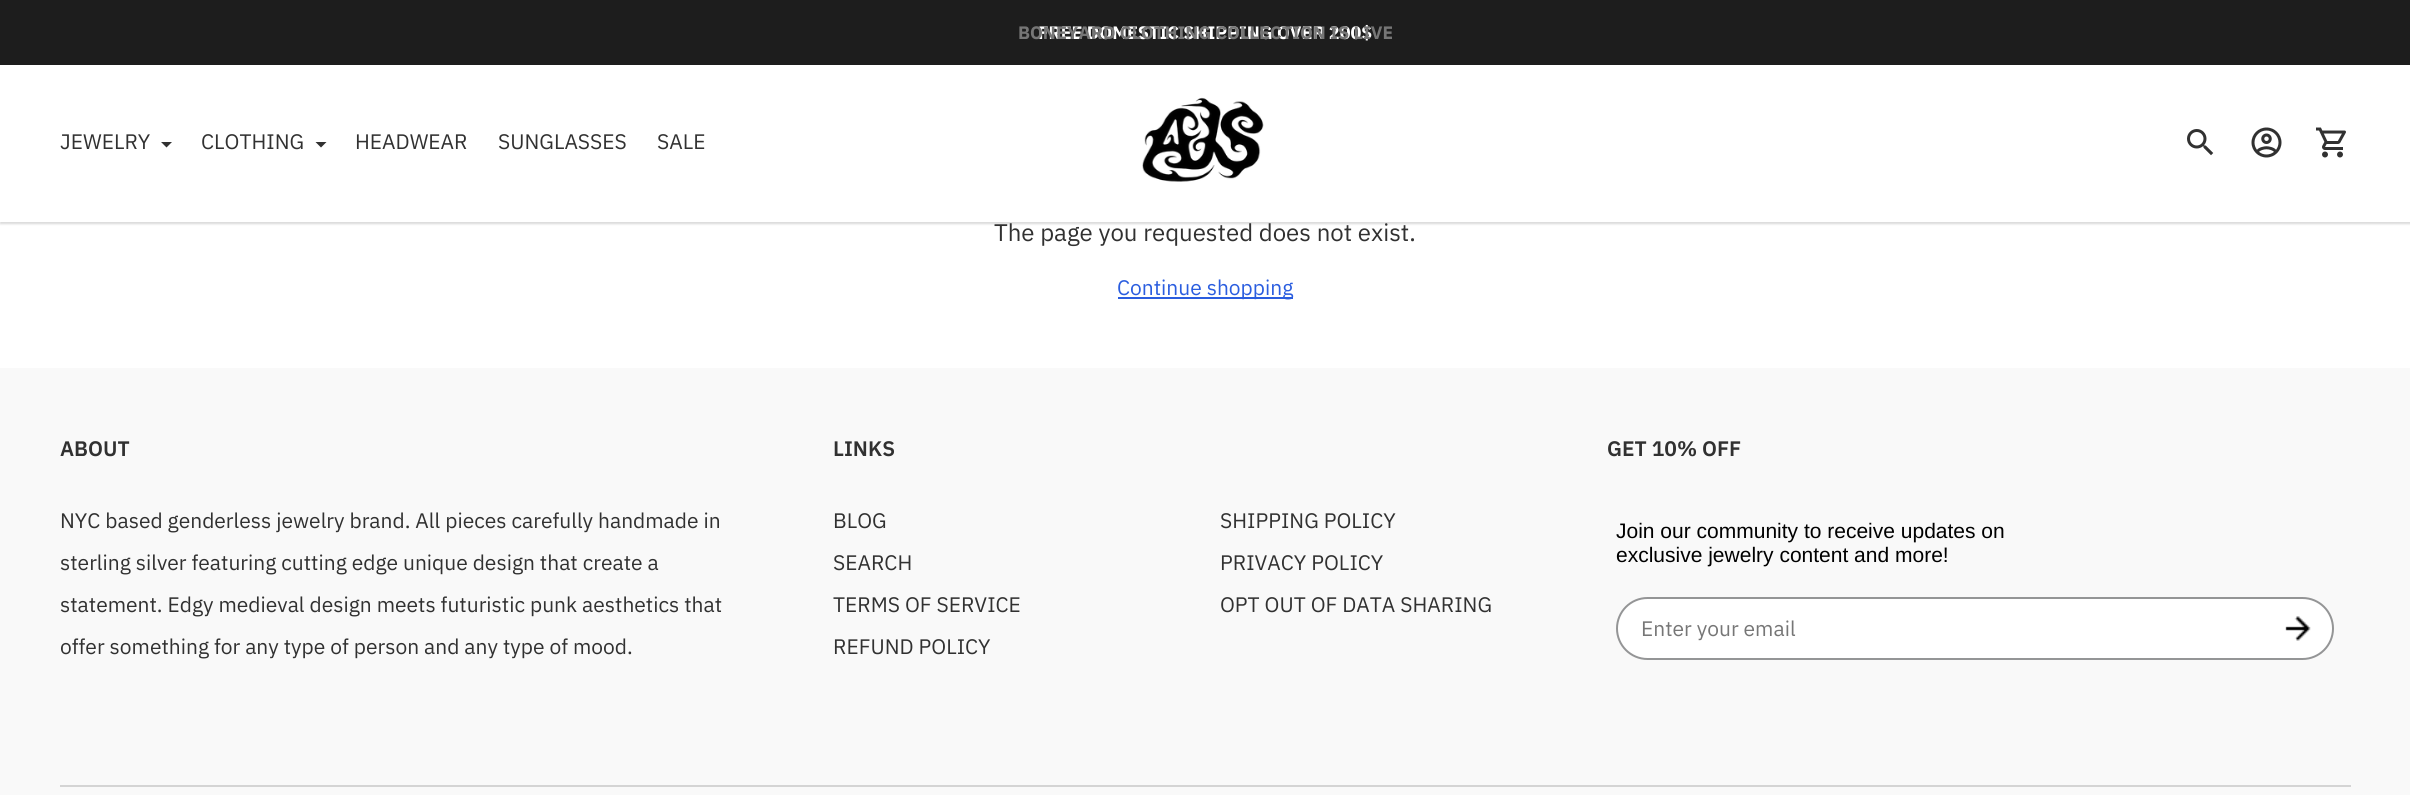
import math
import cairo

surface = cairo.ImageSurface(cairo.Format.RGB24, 2410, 795)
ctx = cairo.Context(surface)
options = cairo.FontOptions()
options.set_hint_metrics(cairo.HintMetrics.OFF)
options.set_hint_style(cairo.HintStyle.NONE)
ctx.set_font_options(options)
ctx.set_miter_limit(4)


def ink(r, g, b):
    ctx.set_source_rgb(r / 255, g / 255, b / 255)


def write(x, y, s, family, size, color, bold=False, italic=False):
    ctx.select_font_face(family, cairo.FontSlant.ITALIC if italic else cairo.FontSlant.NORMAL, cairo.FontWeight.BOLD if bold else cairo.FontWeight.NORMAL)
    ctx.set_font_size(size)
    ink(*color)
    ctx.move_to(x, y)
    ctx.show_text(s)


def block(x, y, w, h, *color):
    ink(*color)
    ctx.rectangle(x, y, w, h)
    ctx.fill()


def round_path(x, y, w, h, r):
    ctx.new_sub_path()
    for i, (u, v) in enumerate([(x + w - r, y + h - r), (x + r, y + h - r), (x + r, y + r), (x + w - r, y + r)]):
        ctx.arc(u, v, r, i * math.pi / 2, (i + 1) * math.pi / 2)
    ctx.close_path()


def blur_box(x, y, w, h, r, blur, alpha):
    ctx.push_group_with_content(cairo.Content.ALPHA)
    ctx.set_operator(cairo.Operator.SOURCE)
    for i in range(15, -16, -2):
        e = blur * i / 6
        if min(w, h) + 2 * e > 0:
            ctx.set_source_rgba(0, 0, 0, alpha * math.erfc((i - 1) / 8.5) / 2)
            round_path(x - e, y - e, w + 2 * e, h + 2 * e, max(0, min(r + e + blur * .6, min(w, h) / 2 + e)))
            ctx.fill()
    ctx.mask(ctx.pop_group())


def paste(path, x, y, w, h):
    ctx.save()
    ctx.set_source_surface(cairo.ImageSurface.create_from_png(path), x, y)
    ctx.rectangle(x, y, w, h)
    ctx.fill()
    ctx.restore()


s1 = dict(family="IBM Plex Sans", size=18, color=(255, 255, 255), bold=True)
s2 = dict(family="IBM Plex Sans", size=18, color=(118, 118, 118), bold=True)
s3 = dict(family="IBM Plex Sans", size=21, color=(49, 49, 49))
s4 = dict(family="IBM Plex Sans", size=24, color=(49, 49, 49))
s5 = dict(family="IBM Plex Sans", size=21, color=(42, 93, 223))
s6 = dict(family="IBM Plex Sans SemiBold", size=21, color=(49, 49, 49))
s7 = dict(family="Liberation Sans", size=21, color=(0, 0, 0))
s8 = dict(family="IBM Plex Sans", size=21, color=(118, 118, 118))

ink(255, 255, 255)
ctx.paint()
block(0, 0, 2410, 65, 29, 29, 29)
write(1038, 39, "FREE DOMESTIC SHIPPING OVER 200$", **s1)
write(1018, 39, "BONEYARD CLOTHING COLLECTION IS LIVE", **s2)
ink(0, 0, 0)
blur_box(0, 66, 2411, 158, 0, 1, 0.15)
block(0, 65, 2410, 157, 255, 255, 255)
write(60, 149, "JEWELRY", **s3)
ctx.new_path()
ctx.move_to(161, 142)
ctx.line_to(166.5, 147.5)
ctx.line_to(172, 142)
ctx.close_path()
ctx.fill()
write(201, 149, "CLOTHING", **s3)
ctx.new_path()
ctx.move_to(315.5, 142)
ctx.line_to(321, 147.5)
ctx.line_to(326.5, 142)
ctx.close_path()
ctx.fill()
write(355, 149, "HEADWEAR", **s3)
write(498, 149, "SUNGLASSES", **s3)
write(657, 149, "SALE", **s3)
paste("pic1.png", 1142, 97, 122, 85)
paste("pic2.png", 2187, 129, 27, 27)
paste("pic3.png", 2251, 127, 31, 31)
paste("pic4.png", 2316, 127, 30, 31)
write(994, 241, "The page you requested does not exist.", **s4)
block(1118, 297, 175, 2, 42, 93, 223)
write(1117, 295, "Continue shopping", **s5)
block(0, 368, 2410, 427, 249, 249, 249)
write(60, 456, "ABOUT", **s6)
write(60, 528, "NYC based genderless jewelry brand. All pieces carefully handmade in", **s3)
write(60, 570, "sterling silver featuring cutting edge unique design that create a", **s3)
write(60, 612, "statement. Edgy medieval design meets futuristic punk aesthetics that", **s3)
write(60, 654, "offer something for any type of person and any type of mood.", **s3)
write(833, 456, "LINKS", **s6)
write(833, 528, "BLOG", **s3)
write(1220, 528, "SHIPPING POLICY", **s3)
write(833, 570, "SEARCH", **s3)
write(1220, 570, "PRIVACY POLICY", **s3)
write(833, 612, "TERMS OF SERVICE", **s3)
write(1220, 612, "OPT OUT OF DATA SHARING", **s3)
write(833, 654, "REFUND POLICY", **s3)
write(1607, 456, "GET 10% OFF", **s6)
write(1616, 538, "Join our community to receive updates on", **s7)
write(1616, 562, "exclusive jewelry content and more!", **s7)
ink(255, 255, 255)
round_path(1617, 598, 716, 61, 30.5)
ctx.fill_preserve()
ink(148, 149, 150)
ctx.stroke()
write(1641, 636, "Enter your email", **s8)
paste("pic5.png", 2285, 616, 26, 25)
block(60, 785, 2291, 2, 212, 212, 212)
surface.write_to_png("screenshot.png")
